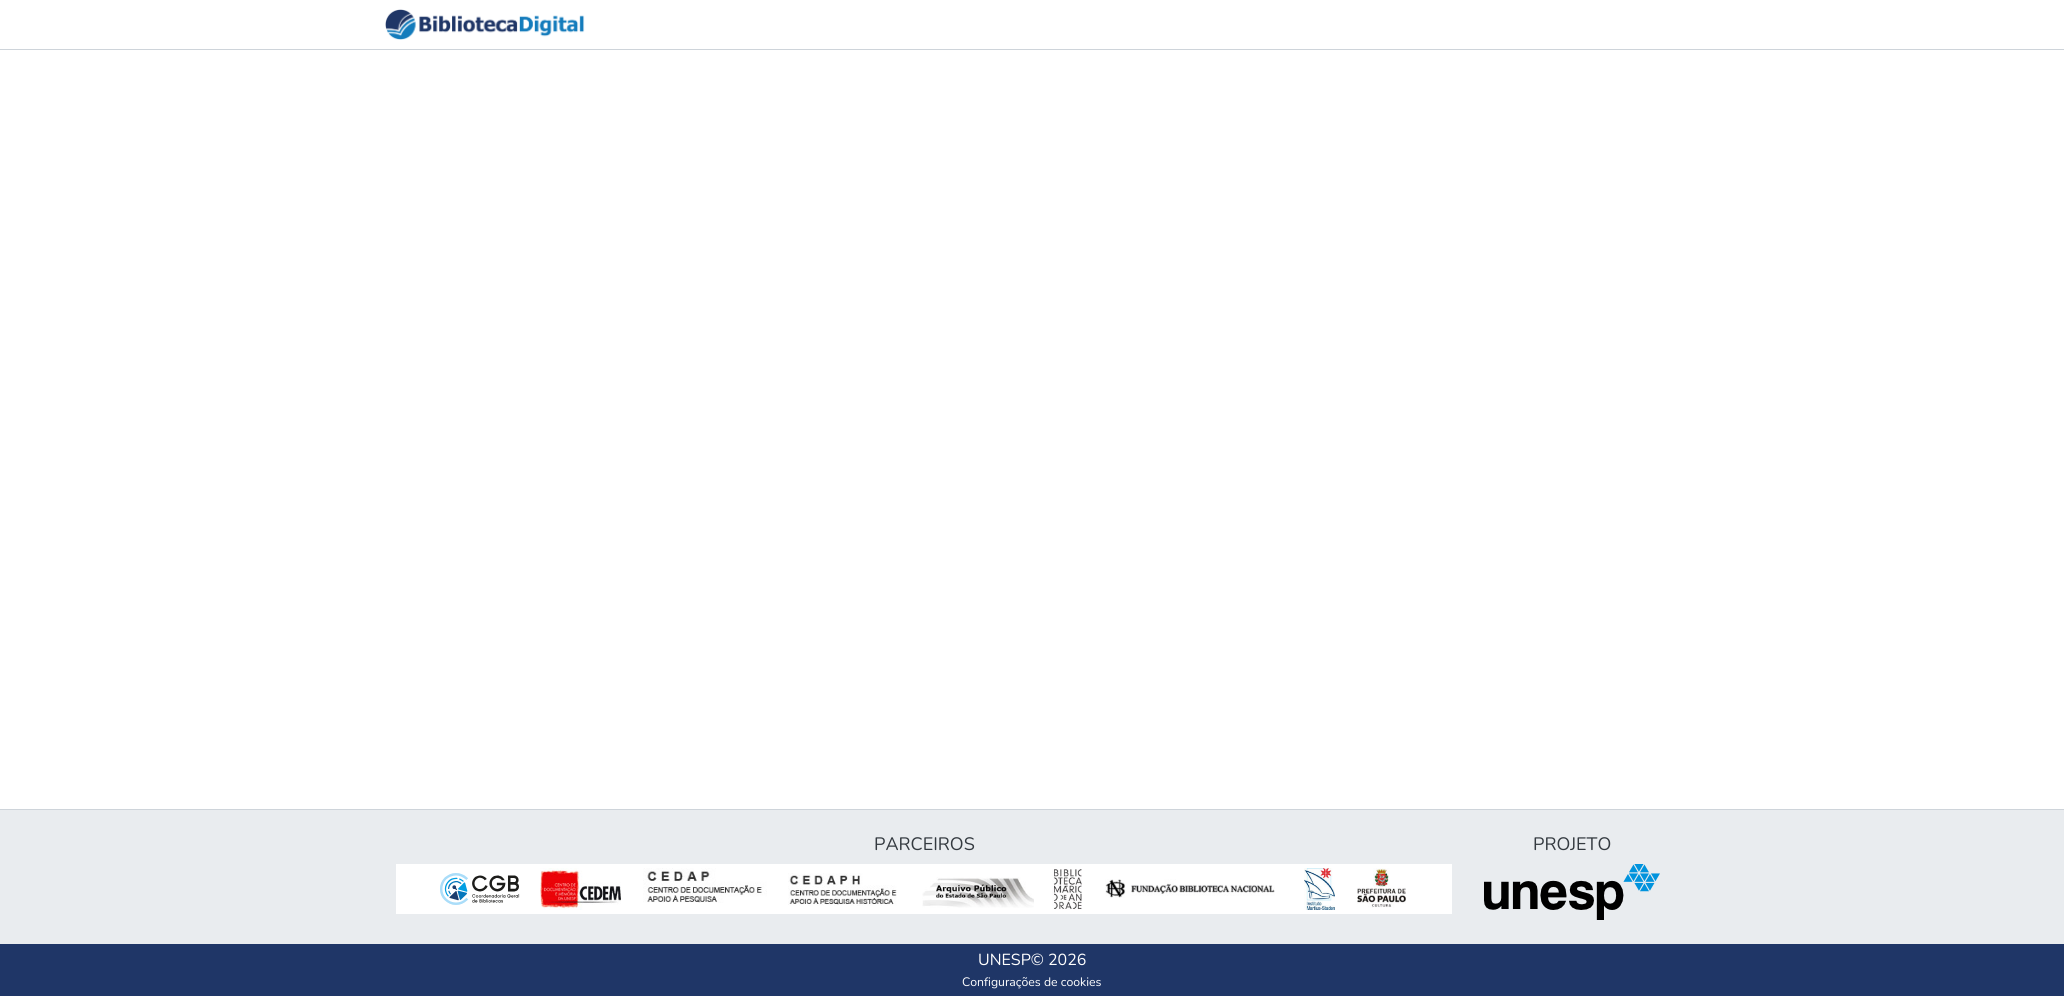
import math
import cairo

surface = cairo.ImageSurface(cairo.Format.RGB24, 2064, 996)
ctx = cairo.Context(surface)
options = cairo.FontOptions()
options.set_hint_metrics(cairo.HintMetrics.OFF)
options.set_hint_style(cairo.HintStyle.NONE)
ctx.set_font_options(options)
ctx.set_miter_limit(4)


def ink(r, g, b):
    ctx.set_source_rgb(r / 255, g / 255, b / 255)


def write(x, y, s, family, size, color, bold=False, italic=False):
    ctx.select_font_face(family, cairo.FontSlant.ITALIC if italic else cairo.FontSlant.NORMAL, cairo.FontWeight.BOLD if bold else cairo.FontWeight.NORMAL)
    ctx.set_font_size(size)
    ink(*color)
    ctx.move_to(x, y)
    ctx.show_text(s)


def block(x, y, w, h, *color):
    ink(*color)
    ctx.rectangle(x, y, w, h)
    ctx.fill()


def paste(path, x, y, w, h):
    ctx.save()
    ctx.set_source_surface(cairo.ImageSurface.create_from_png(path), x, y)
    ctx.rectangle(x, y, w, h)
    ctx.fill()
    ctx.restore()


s1 = dict(family="Nunito", size=18, color=(52, 58, 64))
s2 = dict(family="Nunito", size=16, color=(255, 255, 255))
s3 = dict(family="Nunito", size=12.25, color=(255, 255, 255))

ink(255, 255, 255)
ctx.paint()
block(0, 49, 2064, 1, 206, 212, 218)
paste("pic1.png", 385, 9, 200, 31)
block(0, 809, 2064, 1, 206, 212, 218)
block(0, 810, 2064, 134, 233, 236, 239)
write(874, 850, "PARCEIROS", **s1)
block(396, 864, 1056, 50, 255, 255, 255)
paste("pic2.png", 440, 873, 80, 32)
paste("pic3.png", 540, 868, 81, 42)
paste("pic4.png", 643, 868, 124, 35)
paste("pic5.png", 788, 873, 109, 33)
paste("pic6.png", 922, 877, 112, 31)
paste("pic7.png", 1052, 869, 30, 41)
paste("pic8.png", 1105, 879, 170, 19)
paste("pic9.png", 1304, 868, 31, 42)
paste("pic10.png", 1357, 868, 49, 40)
write(1533, 850, "PROJETO", **s1)
paste("pic11.png", 1484, 864, 176, 56)
block(0, 944, 2064, 52, 31, 54, 103)
write(978, 965, "UNESP© 2026", **s2)
write(962, 986, "Configurações de cookies", **s3)
surface.write_to_png("screenshot.png")
